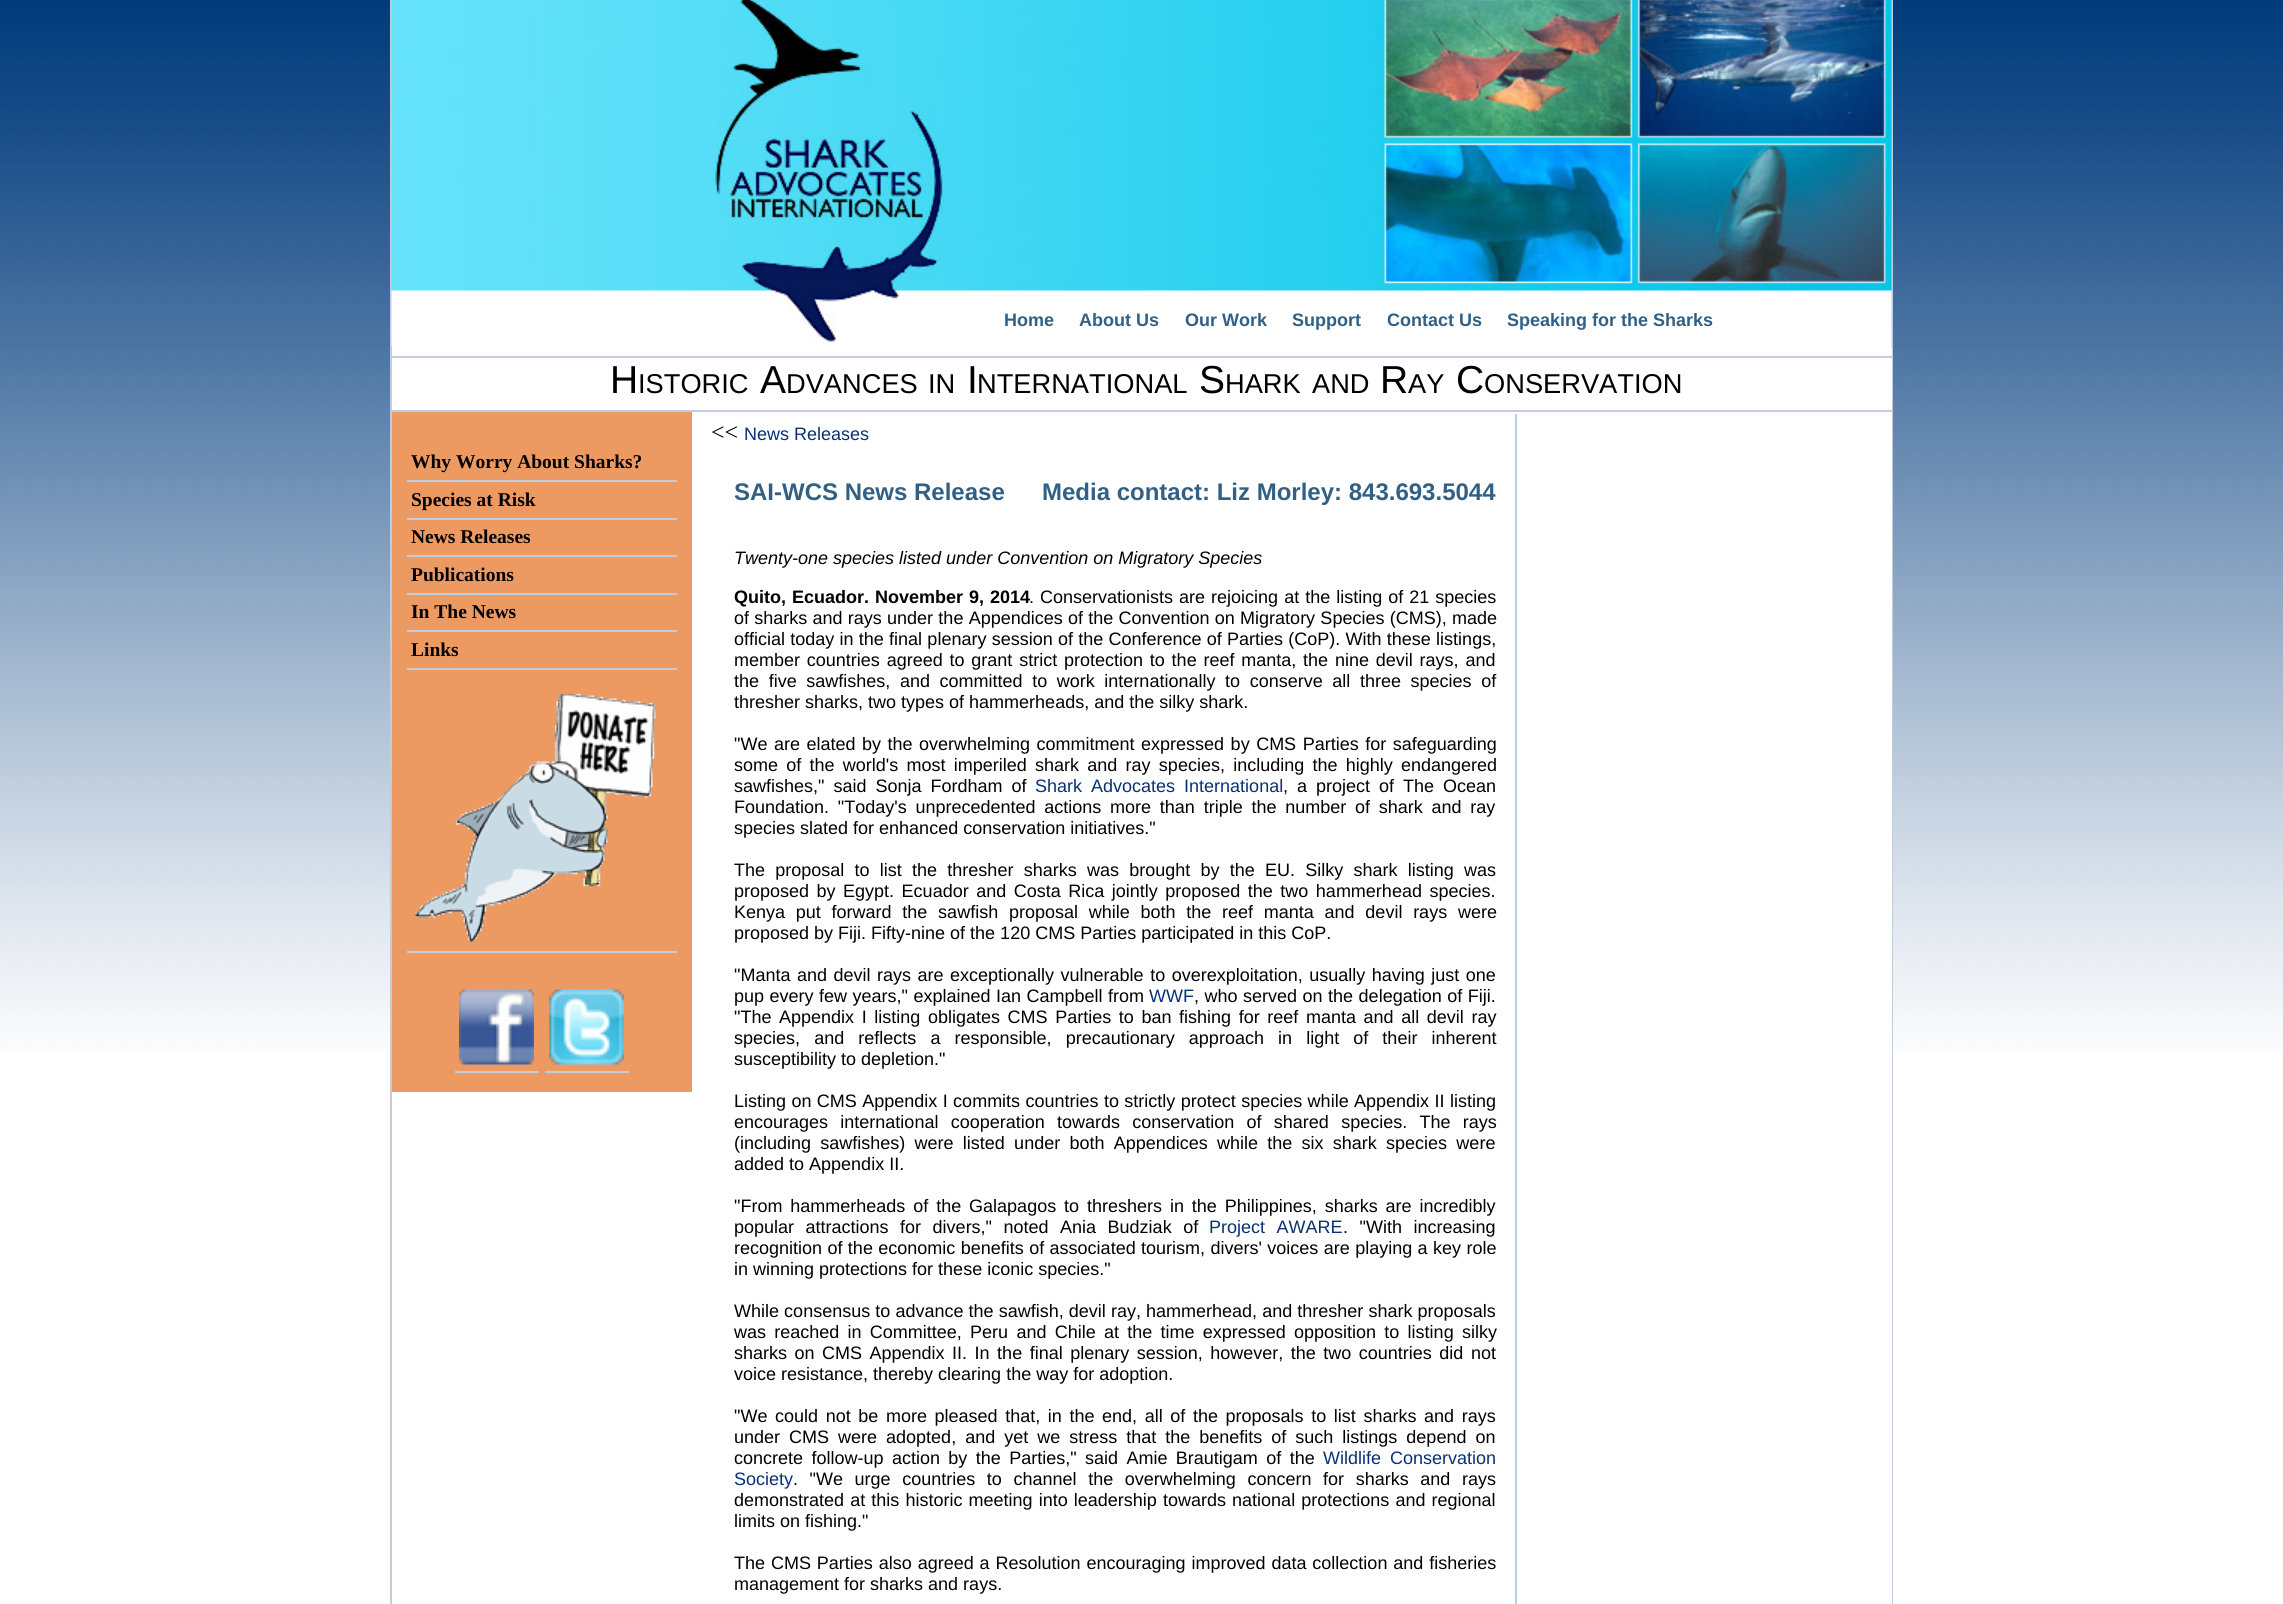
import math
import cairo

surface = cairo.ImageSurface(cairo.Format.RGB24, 2283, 1604)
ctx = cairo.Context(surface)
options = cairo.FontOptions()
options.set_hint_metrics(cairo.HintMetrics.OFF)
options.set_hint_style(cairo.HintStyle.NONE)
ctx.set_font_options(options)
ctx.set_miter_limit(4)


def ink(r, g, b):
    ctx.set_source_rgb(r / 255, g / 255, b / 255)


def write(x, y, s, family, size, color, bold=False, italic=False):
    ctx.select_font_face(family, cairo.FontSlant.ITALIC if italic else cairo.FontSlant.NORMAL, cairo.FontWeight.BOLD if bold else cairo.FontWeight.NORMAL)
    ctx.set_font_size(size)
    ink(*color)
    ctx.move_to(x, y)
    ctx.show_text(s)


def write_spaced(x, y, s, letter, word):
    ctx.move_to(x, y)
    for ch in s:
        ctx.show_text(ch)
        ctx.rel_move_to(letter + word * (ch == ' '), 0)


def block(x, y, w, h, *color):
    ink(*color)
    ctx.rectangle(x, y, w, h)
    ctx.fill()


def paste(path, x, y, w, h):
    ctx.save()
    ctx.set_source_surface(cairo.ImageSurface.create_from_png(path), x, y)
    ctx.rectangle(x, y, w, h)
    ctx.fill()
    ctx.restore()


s1 = dict(family="Liberation Sans", size=18, color=(50, 96, 132), bold=True)
s2 = dict(family="Liberation Sans", size=39, color=(0, 0, 0))
s3 = dict(family="Liberation Sans", size=27.25, color=(0, 0, 0))
s4 = dict(family="Liberation Serif", size=19.5, color=(0, 0, 0), bold=True)
s5 = dict(family="Liberation Serif", size=24, color=(0, 0, 0))
s6 = dict(family="Liberation Sans", size=18, color=(7, 49, 116))
s7 = dict(family="Liberation Sans", size=24, color=(50, 96, 132), bold=True)
s8 = dict(family="Liberation Sans", size=18, color=(0, 0, 0), italic=True)
s9 = dict(family="Liberation Sans", size=18, color=(0, 0, 0))

ink(255, 255, 255)
ctx.paint()
paste("pic1.png", 0, 0, 2283, 1052)
block(392, 346, 1499, 1, 255, 255, 255)
ctx.rectangle(391, -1, 1501, 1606)
ink(191, 205, 222)
ctx.stroke()
paste("pic2.png", 391, 0, 1501, 346)
write(1004, 326, "Home", **s1)
write(1079, 326, "About Us", **s1)
write(1185, 326, "Our Work", **s1)
write(1292, 326, "Support", **s1)
write(1387, 326, "Contact Us", **s1)
write(1507, 326, "Speaking for the Sharks", **s1)
block(392, 347, 1500, 1257, 255, 255, 255)
block(392, 356, 1500, 2, 191, 205, 222)
block(392, 410, 1500, 2, 191, 205, 222)
write(610, 393, "H", **s2)
write(638, 393, "ISTORIC", **s3)
write(760, 393, "A", **s2)
write(786, 393, "DVANCES", **s3)
write(928, 393, "IN", **s3)
write(967, 393, "I", **s2)
write(977, 393, "NTERNATIONAL", **s3)
write(1199, 393, "S", **s2)
write(1225, 393, "HARK", **s3)
write(1312, 393, "AND", **s3)
write(1380, 393, "R", **s2)
write(1408, 393, "AY", **s3)
write(1456, 393, "C", **s2)
write(1484, 393, "ONSERVATION", **s3)
block(392, 412, 300, 680, 236, 154, 97)
block(407, 480, 270, 2, 191, 205, 222)
write(411, 468, "Why Worry About Sharks?", **s4)
block(407, 518, 270, 2, 191, 205, 222)
write(411, 506, "Species at Risk", **s4)
block(407, 555, 270, 2, 191, 205, 222)
write(411, 543, "News Releases", **s4)
block(407, 593, 270, 2, 191, 205, 222)
write(411, 581, "Publications", **s4)
block(407, 630, 270, 2, 191, 205, 222)
write(411, 618, "In The News", **s4)
block(407, 668, 270, 2, 191, 205, 222)
write(411, 656, "Links", **s4)
block(407, 951, 270, 2, 191, 205, 222)
paste("pic3.png", 415, 693, 241, 249)
block(455, 1071, 84, 2, 191, 205, 222)
paste("pic4.png", 459, 989, 75, 76)
block(545, 1071, 84, 2, 191, 205, 222)
paste("pic5.png", 549, 989, 75, 76)
block(1515, 414, 2, 1190, 191, 205, 222)
write(711, 440, "<<", **s5)
write(744, 440, "News Releases", **s6)
write(734, 500, "SAI-WCS News Release", **s7)
write(1042, 500, "Media contact: Liz Morley: 843.693.5044", **s7)
write(734, 564, "Twenty-one species listed under Convention on Migratory Species", **s8)
ctx.select_font_face("Liberation Sans", cairo.FontSlant.NORMAL, cairo.FontWeight.BOLD)
write_spaced(734, 603, "Quito, Ecuador. November 9, 2014", 0, 1)
ctx.select_font_face("Liberation Sans")
write_spaced(1029, 603, ". Conservationists are rejoicing at the listing of 21 species", 0, 1)
write_spaced(734, 624, "of sharks and rays under the Appendices of the Convention on Migratory Species (CMS), made", 0, 0.25)
write_spaced(734, 645, "official today in the final plenary session of the Conference of Parties (CoP). With these listings,", 0, 0.25)
write_spaced(734, 666, "member countries agreed to grant strict protection to the reef manta, the nine devil rays, and", 0, 1.8)
write_spaced(734, 687, "the five sawfishes, and committed to work internationally to conserve all three species of", 0, 4.6)
write(734, 708, "thresher sharks, two types of hammerheads, and the silky shark.", **s9)
write_spaced(734, 750, "\"We are elated by the overwhelming commitment expressed by CMS Parties for safeguarding", 0, 1.5)
write_spaced(734, 771, "some of the world's most imperiled shark and ray species, including the highly endangered", 0, 3.25)
write_spaced(734, 792, "sawfishes,\" said Sonja Fordham of", 0, 4)
ink(7, 49, 116)
write_spaced(1035, 792, "Shark Advocates International", 0, 4)
ink(0, 0, 0)
write_spaced(1283, 792, ", a project of The Ocean", 0, 4)
write_spaced(734, 813, "Foundation. \"Today's unprecedented actions more than triple the number of shark and ray", 0, 3.75)
write(734, 834, "species slated for enhanced conservation initiatives.\"", **s9)
write_spaced(734, 876, "The proposal to list the thresher sharks was brought by the EU. Silky shark listing was", 0, 5.25)
write_spaced(734, 897, "proposed by Egypt. Ecuador and Costa Rica jointly proposed the two hammerhead species.", 0, 2.5)
write_spaced(734, 918, "Kenya put forward the sawfish proposal while both the reef manta and devil rays were", 0, 5.75)
write(734, 939, "proposed by Fiji. Fifty-nine of the 120 CMS Parties participated in this CoP.", **s9)
write_spaced(734, 981, "\"Manta and devil rays are exceptionally vulnerable to overexploitation, usually having just one", 0, 1.5)
write_spaced(734, 1002, "pup every few years,\" explained Ian Campbell from", 0, 0.5)
write(1149, 1002, "WWF", **s6)
ink(0, 0, 0)
write_spaced(1194, 1002, ", who served on the delegation of Fiji.", 0, 0.5)
write_spaced(734, 1023, "\"The Appendix I listing obligates CMS Parties to ban fishing for reef manta and all devil ray", 0, 2.6)
write_spaced(734, 1044, "species, and reflects a responsible, precautionary approach in light of their inherent", 0, 9.1)
write(734, 1065, "susceptibility to depletion.\"", **s9)
write_spaced(734, 1107, "Listing on CMS Appendix I commits countries to strictly protect species while Appendix II listing", 0, 0.4)
write_spaced(734, 1128, "encourages international cooperation towards conservation of shared species. The rays", 0, 7.25)
write_spaced(734, 1149, "(including sawfishes) were listed under both Appendices while the six shark species were", 0, 4.25)
write(734, 1170, "added to Appendix II.", **s9)
write_spaced(734, 1212, "\"From hammerheads of the Galapagos to threshers in the Philippines, sharks are incredibly", 0, 2.9)
write_spaced(734, 1233, "popular attractions for divers,\" noted Ania Budziak of", 0, 6.5)
ink(7, 49, 116)
write_spaced(1209, 1233, "Project AWARE", 0, 6.5)
ink(0, 0, 0)
write_spaced(1343, 1233, ". \"With increasing", 0, 6.5)
write_spaced(734, 1254, "recognition of the economic benefits of associated tourism, divers' voices are playing a key role", 0, 0.4)
write(734, 1275, "in winning protections for these iconic species.\"", **s9)
write_spaced(734, 1317, "While consensus to advance the sawfish, devil ray, hammerhead, and thresher shark proposals", 0, 0.1)
write_spaced(734, 1338, "was reached in Committee, Peru and Chile at the time expressed opposition to listing silky", 0, 3.25)
write_spaced(734, 1359, "sharks on CMS Appendix II. In the final plenary session, however, the two countries did not", 0, 2.5)
write(734, 1380, "voice resistance, thereby clearing the way for adoption.", **s9)
write_spaced(734, 1422, "\"We could not be more pleased that, in the end, all of the proposals to list sharks and rays", 0, 2.6)
write_spaced(734, 1443, "under CMS were adopted, and yet we stress that the benefits of such listings depend on", 0, 4)
write_spaced(734, 1464, "concrete follow-up action by the Parties,\" said Amie Brautigam of the", 0, 3.4)
ink(7, 49, 116)
write_spaced(1323, 1464, "Wildlife Conservation", 0, 4)
write(734, 1485, "Society", **s6)
ink(0, 0, 0)
write_spaced(793, 1485, ". \"We urge countries to channel the overwhelming concern for sharks and rays", 0, 6.6)
write_spaced(734, 1506, "demonstrated at this historic meeting into leadership towards national protections and regional", 0, 1.1)
write(734, 1527, "limits on fishing.\"", **s9)
write_spaced(734, 1569, "The CMS Parties also agreed a Resolution encouraging improved data collection and fisheries", 0, 0.9)
write(734, 1590, "management for sharks and rays.", **s9)
surface.write_to_png("screenshot.png")
